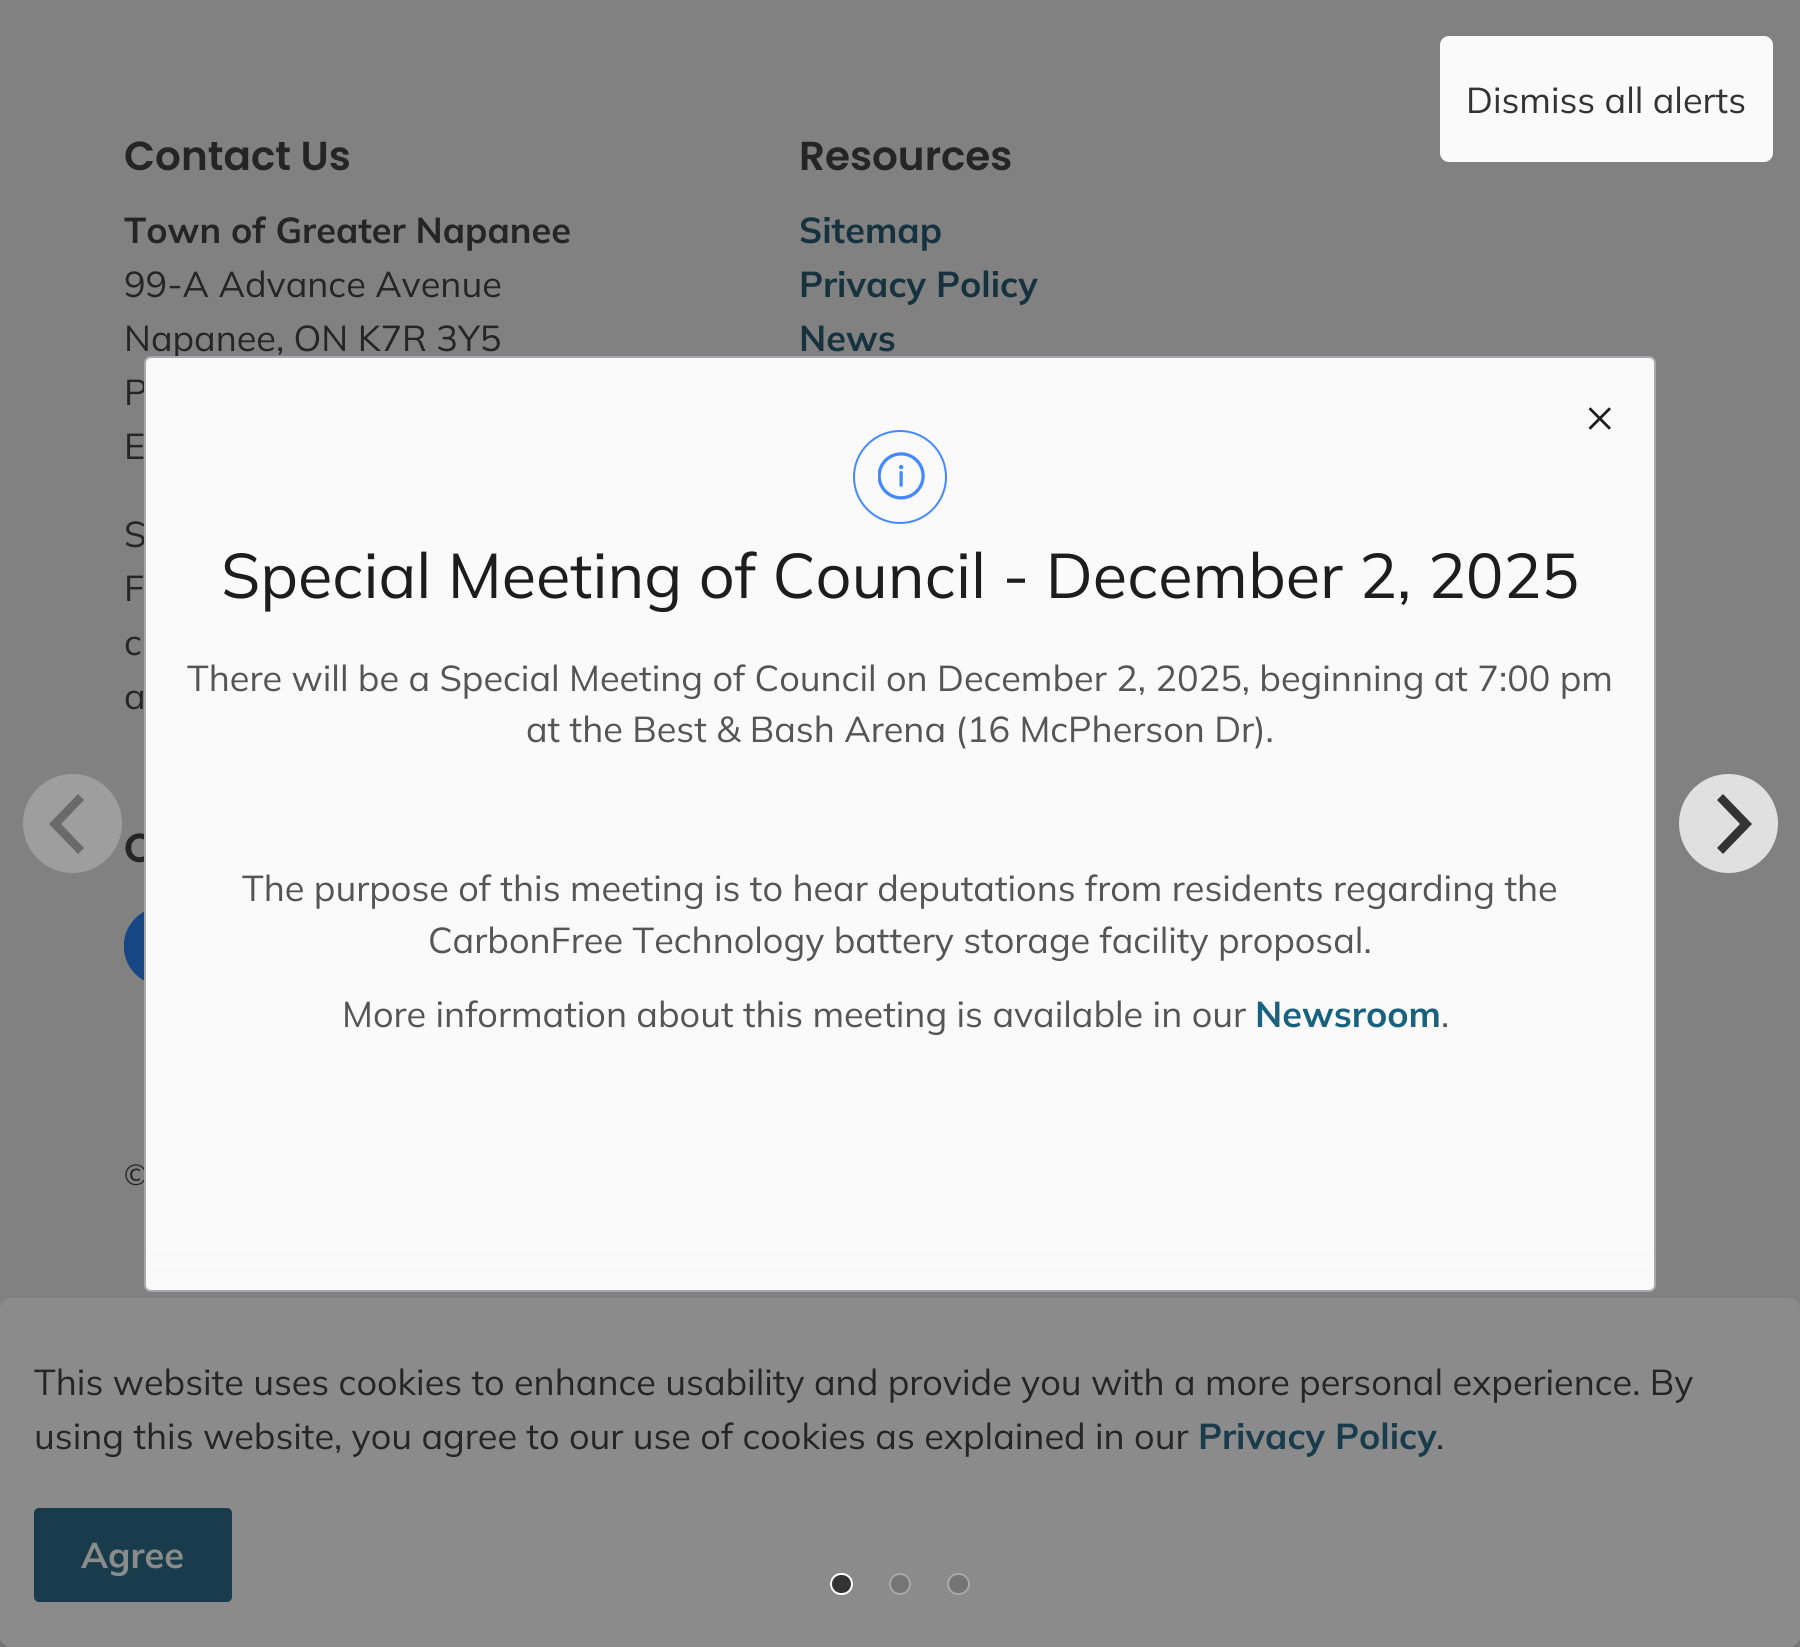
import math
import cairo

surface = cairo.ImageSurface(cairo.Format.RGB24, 1800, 1647)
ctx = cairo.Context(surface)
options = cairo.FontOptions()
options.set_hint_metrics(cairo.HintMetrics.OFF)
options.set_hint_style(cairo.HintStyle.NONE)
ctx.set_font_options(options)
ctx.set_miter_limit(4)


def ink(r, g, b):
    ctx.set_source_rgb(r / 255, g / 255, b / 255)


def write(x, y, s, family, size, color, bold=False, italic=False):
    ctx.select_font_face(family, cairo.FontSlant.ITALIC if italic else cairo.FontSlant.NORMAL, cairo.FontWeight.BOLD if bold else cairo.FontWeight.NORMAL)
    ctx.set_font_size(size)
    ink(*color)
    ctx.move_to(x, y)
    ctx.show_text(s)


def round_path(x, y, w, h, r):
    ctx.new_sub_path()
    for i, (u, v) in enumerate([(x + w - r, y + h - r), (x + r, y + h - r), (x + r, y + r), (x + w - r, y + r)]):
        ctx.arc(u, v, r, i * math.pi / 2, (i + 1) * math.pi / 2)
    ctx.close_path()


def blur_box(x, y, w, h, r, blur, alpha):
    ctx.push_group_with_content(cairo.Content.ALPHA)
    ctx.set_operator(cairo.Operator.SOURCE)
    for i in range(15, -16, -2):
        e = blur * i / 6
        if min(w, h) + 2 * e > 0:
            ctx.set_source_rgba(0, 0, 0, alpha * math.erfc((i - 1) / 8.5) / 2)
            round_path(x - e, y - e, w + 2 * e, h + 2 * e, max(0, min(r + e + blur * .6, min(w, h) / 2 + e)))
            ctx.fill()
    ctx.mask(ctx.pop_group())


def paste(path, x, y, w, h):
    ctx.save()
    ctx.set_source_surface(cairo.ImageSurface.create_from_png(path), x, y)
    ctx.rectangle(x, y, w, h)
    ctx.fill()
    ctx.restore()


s1 = dict(family="Mulish", size=36, color=(51, 51, 51))
s2 = dict(family="Mulish", size=36, color=(37, 37, 37))
s3 = dict(family="Poppins SemiBold", size=40.5, color=(37, 37, 37))
s4 = dict(family="Mulish", size=29, color=(37, 37, 37))
s5 = dict(family="Mulish", size=63, color=(29, 29, 29))
s6 = dict(family="Mulish", size=36, color=(85, 85, 85))
s7 = dict(family="Mulish", size=36, color=(25, 98, 127), bold=True)
s8 = dict(family="Mulish", size=36, color=(37, 37, 37), bold=True)
s9 = dict(family="Mulish", size=36, color=(21, 50, 62), bold=True)
s10 = dict(family="Mulish", size=36, color=(24, 60, 75), bold=True)
s11 = dict(family="Mulish", size=36, color=(139, 139, 139), bold=True)

ink(129, 129, 129)
ctx.paint()
ink(250, 250, 250)
round_path(1440, 36, 333, 126, 9)
ctx.fill()
write(1466, 113, "Dismiss all alerts", **s1)
ink(158, 158, 158)
ctx.new_path()
ctx.arc(72.5, 823.5, 49.5, 0, 2 * math.pi)
ctx.fill()
ink(106, 106, 106)
ctx.new_path()
ctx.move_to(49, 824)
ctx.line_to(78, 854)
ctx.line_to(84, 848)
ctx.line_to(61, 824)
ctx.line_to(84, 800)
ctx.line_to(78, 794)
ctx.close_path()
ctx.fill()
write(124, 351, "Napanee, ON K7R 3Y5", **s2)
write(124, 405, "P", **s2)
write(124, 547, "S", **s2)
write(124, 862, "C", **s3)
write(124, 1185, "©", **s4)
ink(250, 250, 250)
round_path(145, 357, 1510, 934, 6)
ctx.fill_preserve()
ink(167, 169, 172)
ctx.stroke()
paste("pic1.png", 1588, 407, 23, 23)
paste("pic2.png", 878, 452, 47, 48)
ctx.arc(900, 477, 46, 0, 2 * math.pi)
ink(69, 137, 255)
ctx.stroke()
write(221, 598, "Special Meeting of Council - December 2, 2025", **s5)
write(187, 691, "There will be a Special Meeting of Council on December 2, 2025, beginning at 7:00 pm", **s6)
write(526, 742, "at the Best & Bash Arena (16 McPherson Dr).", **s6)
write(242, 901, "The purpose of this meeting is to hear deputations from residents regarding the", **s6)
write(428, 953, "CarbonFree Technology battery storage facility proposal.", **s6)
write(342, 1027, "More information about this meeting is available in our", **s6)
write(1255, 1027, "Newsroom", **s7)
write(1441, 1027, ".", **s6)
gradient = cairo.LinearGradient(900, 1253, 900, 1289)
gradient.add_color_stop_rgba(0, 0.98, 0.98, 0.98, 0)
gradient.add_color_stop_rgba(1, 0.98, 0.98, 0.98, 1)
ctx.set_source(gradient)
ctx.new_path()
ctx.move_to(146, 1253)
ctx.line_to(1654, 1253)
ctx.line_to(1654, 1284)
ctx.curve_to(1654, 1287, 1652, 1289, 1649, 1289)
ctx.line_to(151, 1289)
ctx.curve_to(148, 1289, 146, 1287, 146, 1284)
ctx.close_path()
ctx.fill()
ink(224, 224, 224)
ctx.arc(1728.5, 823.5, 49.5, 0, 2 * math.pi)
ctx.fill()
ink(51, 51, 51)
ctx.new_path()
ctx.move_to(1752, 824)
ctx.line_to(1723, 794)
ctx.line_to(1717, 800)
ctx.line_to(1740, 824)
ctx.line_to(1717, 848)
ctx.line_to(1723, 854)
ctx.close_path()
ctx.fill()
ink(11, 11, 11)
blur_box(0, 1307, 1800, 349, 11, 1, 0.1)
ink(139, 139, 139)
round_path(0, 1298, 1800, 349, 11)
ctx.fill()
ink(51, 51, 51)
round_path(831, 1574, 21, 20, 10)
ctx.fill_preserve()
ink(255, 255, 255)
ctx.stroke()
ink(117, 117, 117)
ctx.arc(900, 1584, 10, 0, 2 * math.pi)
ctx.fill_preserve()
ink(168, 168, 168)
ctx.stroke()
ink(117, 117, 117)
round_path(948, 1574, 21, 20, 10)
ctx.fill_preserve()
ink(168, 168, 168)
ctx.stroke()
write(124, 170, "Contact Us", **s3)
write(124, 243, "Town of Greater Napanee", **s8)
write(124, 297, "99-A Advance Avenue", **s2)
write(124, 459, "E", **s2)
write(124, 601, "F", **s2)
write(124, 655, "c", **s2)
write(124, 709, "a", **s2)
write(799, 170, "Resources", **s3)
write(799, 243, "Sitemap", **s9)
write(799, 297, "Privacy Policy", **s9)
write(799, 351, "News", **s9)
paste("pic3.png", 124, 911, 20, 70)
write(34, 1395, "This website uses cookies to enhance usability and provide you with a more personal experience. By", **s2)
write(34, 1449, "using this website, you agree to our use of cookies as explained in our", **s2)
write(1198, 1449, "Privacy Policy", **s10)
write(1436, 1449, ".", **s2)
ink(24, 60, 75)
round_path(35, 1509, 196, 92, 4)
ctx.fill_preserve()
ctx.stroke()
write(81, 1568, "Agree", **s11)
surface.write_to_png("screenshot.png")
